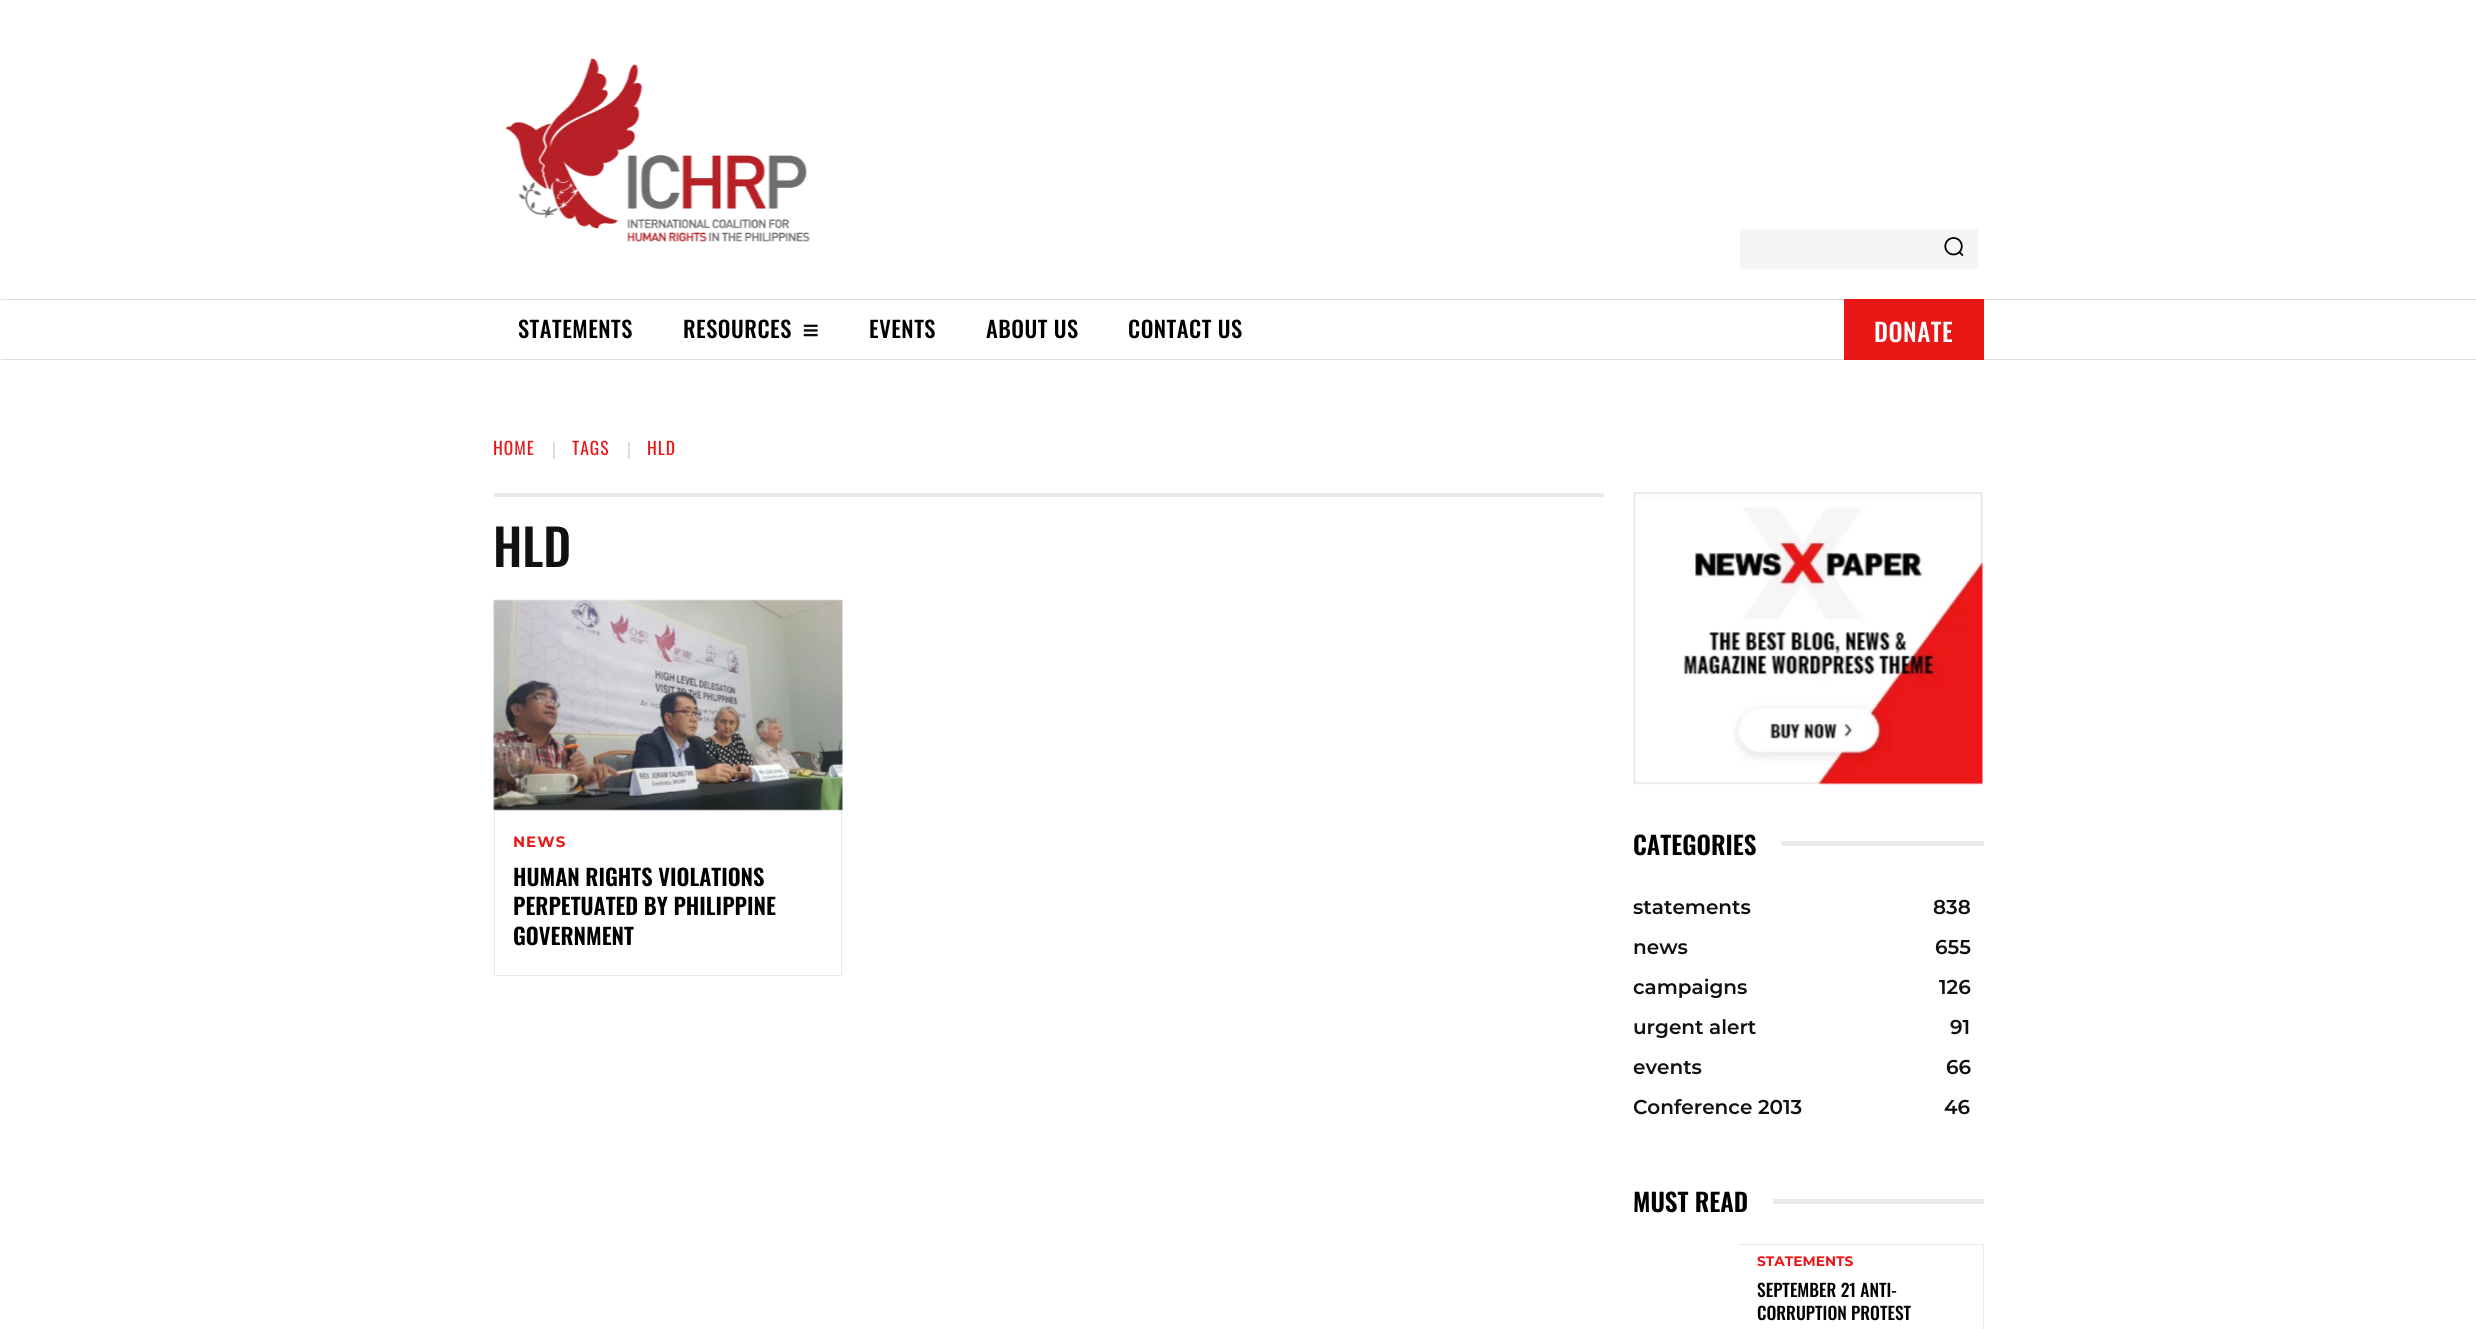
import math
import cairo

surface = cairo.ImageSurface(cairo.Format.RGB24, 2476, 1329)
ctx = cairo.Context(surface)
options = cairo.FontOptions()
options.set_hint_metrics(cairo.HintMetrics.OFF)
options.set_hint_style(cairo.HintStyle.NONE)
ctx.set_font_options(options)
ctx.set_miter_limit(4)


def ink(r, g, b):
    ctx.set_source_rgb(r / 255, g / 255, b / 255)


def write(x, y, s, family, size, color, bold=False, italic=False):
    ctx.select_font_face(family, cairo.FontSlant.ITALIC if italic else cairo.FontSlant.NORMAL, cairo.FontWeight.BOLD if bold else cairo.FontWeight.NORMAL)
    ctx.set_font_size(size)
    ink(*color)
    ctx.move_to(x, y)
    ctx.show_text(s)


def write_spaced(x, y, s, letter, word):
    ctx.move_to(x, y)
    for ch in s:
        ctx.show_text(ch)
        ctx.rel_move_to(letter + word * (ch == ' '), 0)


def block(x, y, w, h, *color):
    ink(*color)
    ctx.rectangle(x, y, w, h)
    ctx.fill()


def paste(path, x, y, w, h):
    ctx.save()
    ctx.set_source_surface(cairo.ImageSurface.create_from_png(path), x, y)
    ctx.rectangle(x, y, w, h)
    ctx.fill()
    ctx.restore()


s1 = dict(family="Oswald Medium", size=50, color=(17, 17, 17))
s2 = dict(family="Oswald SemiBold", size=22.5, color=(0, 0, 0))
s3 = dict(family="Oswald SemiBold", size=25, color=(0, 0, 0))
s4 = dict(family="Montserrat SemiBold", size=20, color=(17, 17, 17))
s5 = dict(family="Montserrat", size=13.75, color=(234, 23, 23), bold=True)
s6 = dict(family="Oswald Medium", size=17.5, color=(0, 0, 0))

ink(255, 255, 255)
ctx.paint()
paste("pic1.png", 505, 58, 305, 184)
block(1740, 229, 238, 40, 245, 245, 245)
paste("pic2.png", 1944, 237, 20, 20)
block(1, 299, 2475, 1, 221, 221, 221)
block(1, 359, 2475, 1, 221, 221, 221)
ctx.select_font_face("Oswald Medium")
ctx.set_font_size(22.5)
ink(0, 0, 0)
write_spaced(518, 338, "STATEMENTS", 0.5, 0)
write_spaced(683, 338, "RESOURCES", 0.5, 0)
paste("pic3.png", 803, 324, 15, 13)
write_spaced(869, 338, "EVENTS", 0.5, 0)
write_spaced(986, 338, "ABOUT US", 0.5, 0)
write_spaced(1128, 338, "CONTACT US", 0.5, 0)
block(1844, 299, 140, 61, 234, 23, 23)
ctx.set_font_size(25)
ink(255, 255, 255)
write_spaced(1874, 342, "DONATE", 0.5, 0)
ctx.select_font_face("Oswald")
ctx.set_font_size(17.5)
ink(234, 23, 23)
write_spaced(493, 455, "HOME", 1, 0)
block(553, 442, 2, 17, 221, 221, 221)
ink(234, 23, 23)
write_spaced(572, 455, "TAGS", 1, 0)
block(628, 442, 2, 17, 221, 221, 221)
ink(234, 23, 23)
write_spaced(647, 455, "HLD", 1, 0)
block(494, 493, 1110, 4, 234, 234, 234)
write(493, 567, "HLD", **s1)
paste("pic4.png", 493, 599, 350, 212)
block(841, 810, 1, 166, 234, 234, 234)
block(494, 975, 349, 1, 234, 234, 234)
block(494, 810, 1, 166, 234, 234, 234)
ctx.select_font_face("Montserrat", cairo.FontSlant.NORMAL, cairo.FontWeight.BOLD)
ctx.set_font_size(15)
ink(234, 23, 23)
write_spaced(513, 847, "NEWS", 1, 0)
write(513, 886, "HUMAN RIGHTS VIOLATIONS", **s2)
write(513, 915, "PERPETUATED BY PHILIPPINE", **s2)
write(513, 945, "GOVERNMENT", **s2)
paste("pic5.png", 1633, 492, 350, 293)
write(1633, 855, "CATEGORIES", **s3)
block(1781, 841, 203, 5, 234, 234, 234)
write(1633, 914, "statements", **s4)
write(1933, 914, "838", **s4)
write(1633, 954, "news", **s4)
write(1935, 954, "655", **s4)
write(1633, 994, "campaigns", **s4)
write(1939, 994, "126", **s4)
write(1633, 1034, "urgent alert", **s4)
write(1950, 1034, "91", **s4)
write(1633, 1074, "events", **s4)
write(1946, 1074, "66", **s4)
write(1633, 1114, "Conference 2013", **s4)
write(1944, 1114, "46", **s4)
write(1633, 1212, "MUST READ", **s3)
block(1773, 1199, 211, 5, 234, 234, 234)
block(1739, 1244, 245, 1, 234, 234, 234)
block(1983, 1244, 1, 85, 234, 234, 234)
write(1757, 1266, "STATEMENTS", **s5)
write(1757, 1297, "SEPTEMBER 21 ANTI-", **s6)
write(1757, 1320, "CORRUPTION PROTEST", **s6)
surface.write_to_png("screenshot.png")
